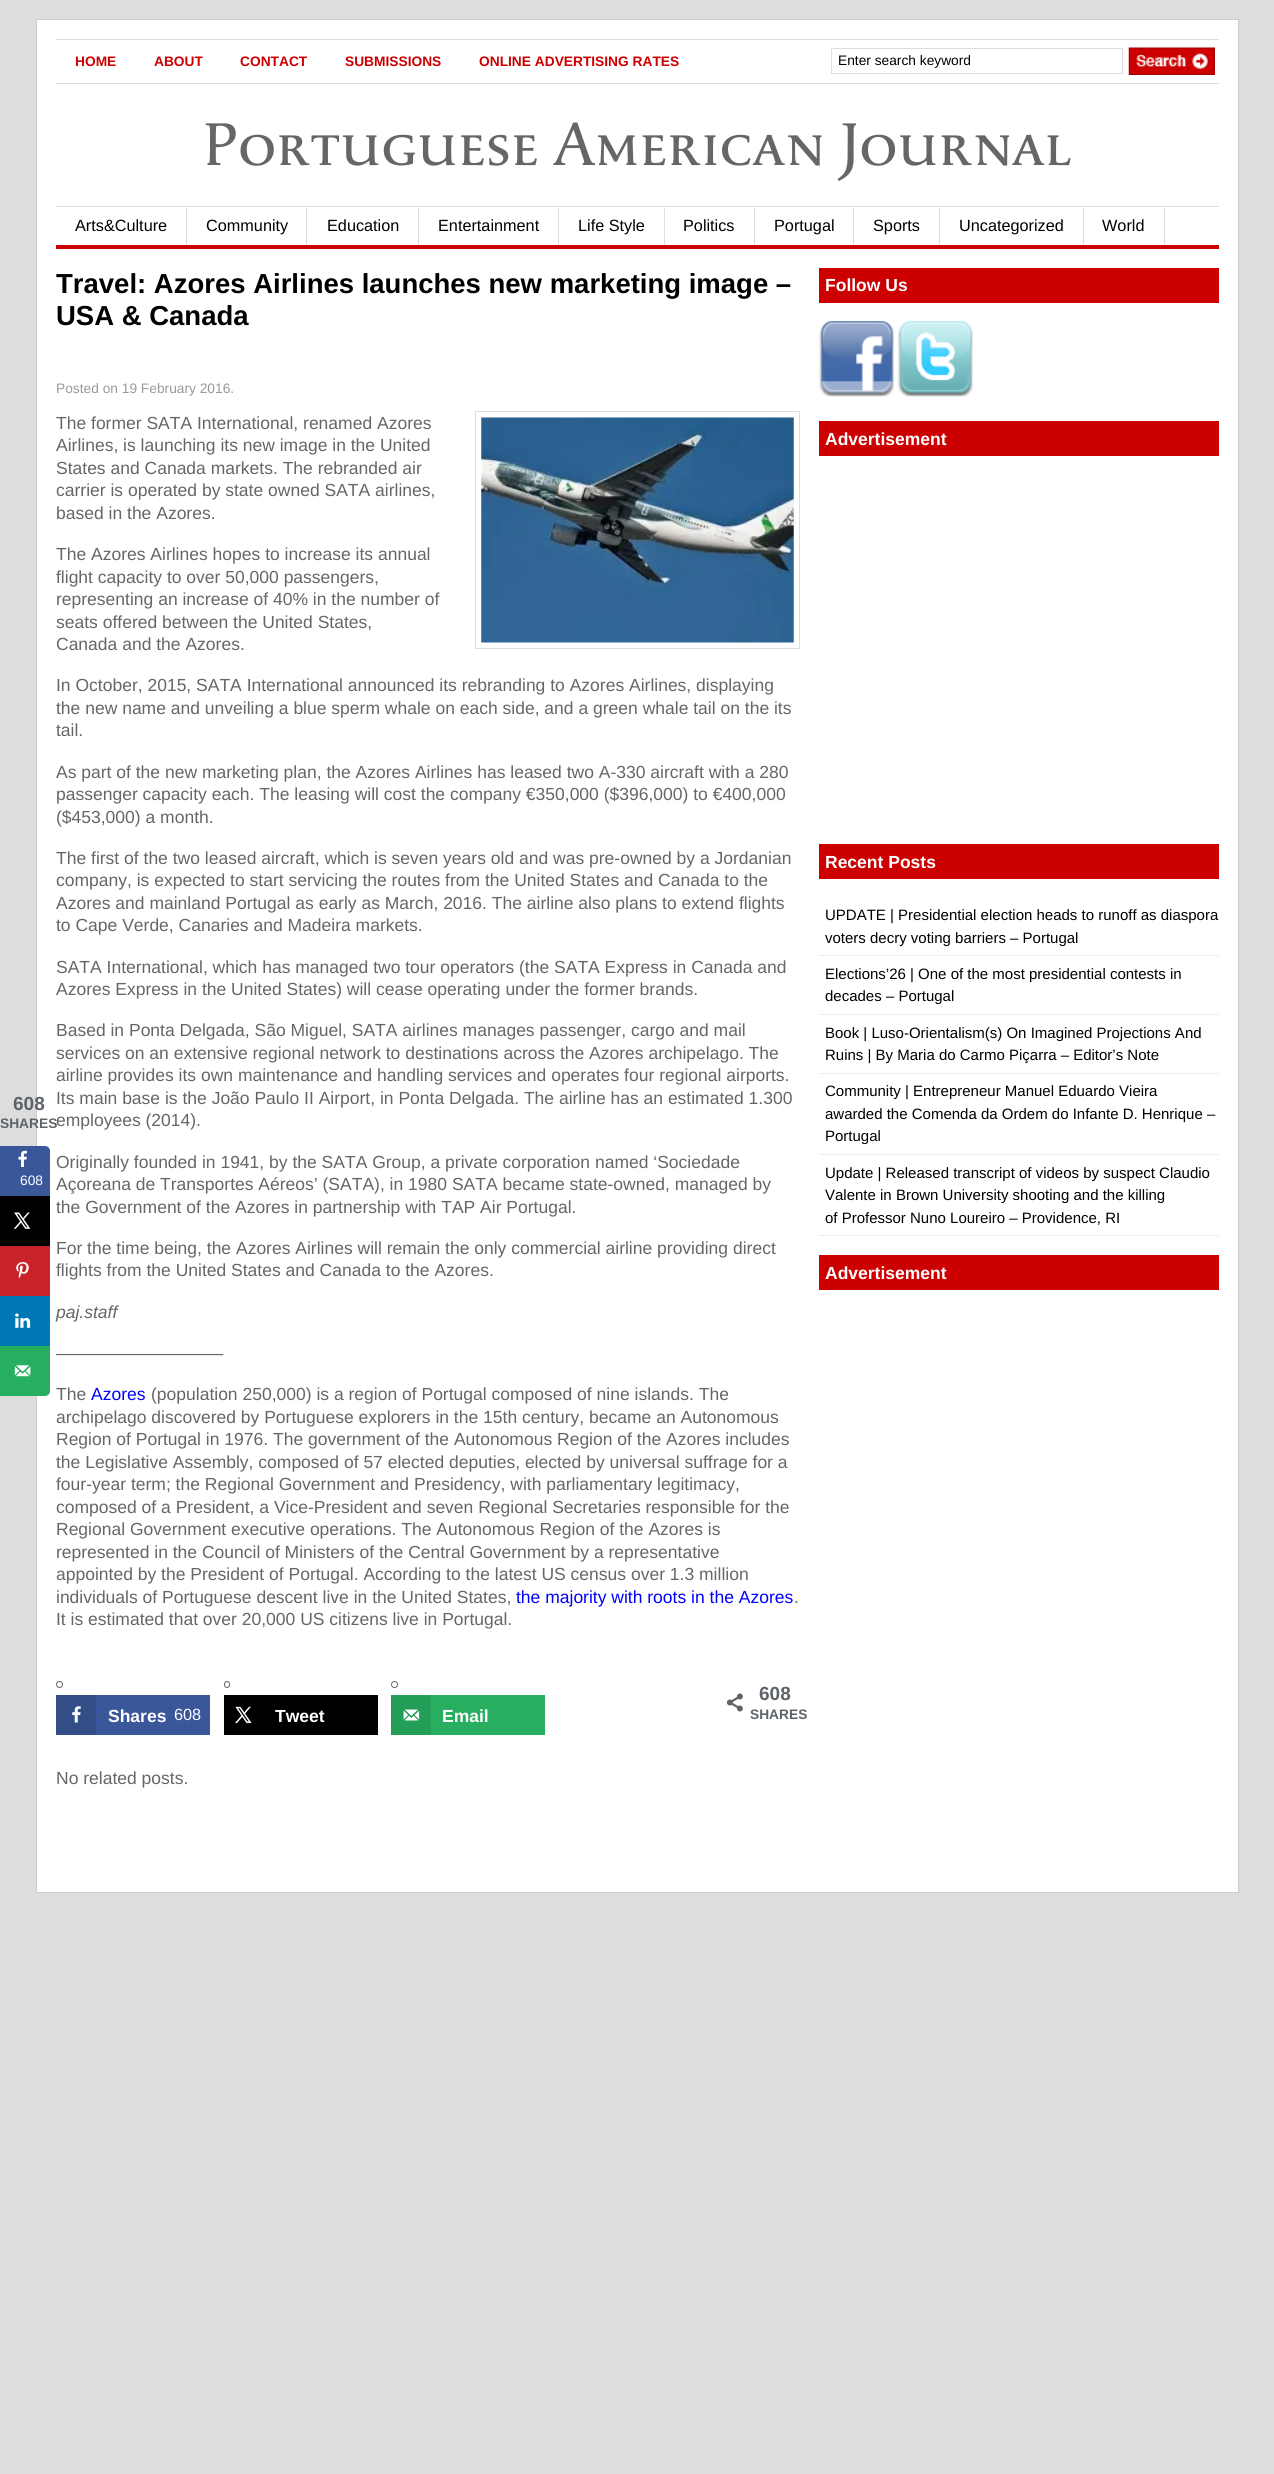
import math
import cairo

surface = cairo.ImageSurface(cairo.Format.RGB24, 1274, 2474)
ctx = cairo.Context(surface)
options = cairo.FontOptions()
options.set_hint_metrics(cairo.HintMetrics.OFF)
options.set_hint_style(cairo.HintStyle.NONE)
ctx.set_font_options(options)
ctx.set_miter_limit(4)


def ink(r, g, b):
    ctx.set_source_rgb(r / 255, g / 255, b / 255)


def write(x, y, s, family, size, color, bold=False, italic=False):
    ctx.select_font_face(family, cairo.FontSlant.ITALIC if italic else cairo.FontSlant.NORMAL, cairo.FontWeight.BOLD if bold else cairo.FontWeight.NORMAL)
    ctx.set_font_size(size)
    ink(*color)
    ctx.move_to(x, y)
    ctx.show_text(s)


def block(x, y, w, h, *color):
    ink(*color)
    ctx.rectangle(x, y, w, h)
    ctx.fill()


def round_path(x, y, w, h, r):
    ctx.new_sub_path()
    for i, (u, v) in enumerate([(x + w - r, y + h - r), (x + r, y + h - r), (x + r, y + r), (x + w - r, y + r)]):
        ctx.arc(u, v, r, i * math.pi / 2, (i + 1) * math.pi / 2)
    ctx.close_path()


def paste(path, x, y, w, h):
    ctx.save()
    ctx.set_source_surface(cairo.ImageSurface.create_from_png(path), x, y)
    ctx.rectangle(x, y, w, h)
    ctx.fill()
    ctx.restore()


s1 = dict(family="Liberation Sans", size=19, color=(93, 99, 104), bold=True)
s2 = dict(family="Liberation Sans", size=13.75, color=(93, 99, 104), bold=True)
s3 = dict(family="Liberation Sans", size=13.75, color=(255, 255, 255))
s4 = dict(family="Liberation Sans", size=13.75, color=(204, 0, 0), bold=True)
s5 = dict(family="Liberation Sans", size=13.75, color=(0, 0, 0))
s6 = dict(family="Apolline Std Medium", size=62.5, color=(102, 102, 102))
s7 = dict(family="Liberation Sans", size=16.25, color=(0, 0, 0))
s8 = dict(family="Liberation Sans", size=27.5, color=(0, 0, 0), bold=True)
s9 = dict(family="Liberation Sans", size=13.75, color=(153, 153, 153))
s10 = dict(family="Liberation Sans", size=17.5, color=(102, 102, 102))
s11 = dict(family="Liberation Sans", size=17.5, color=(102, 102, 102), italic=True)
s12 = dict(family="Liberation Sans", size=17.5, color=(0, 0, 255))
s13 = dict(family="Liberation Sans", size=17.5, color=(255, 255, 255), bold=True)
s14 = dict(family="Liberation Sans", size=16.25, color=(255, 255, 255))
s15 = dict(family="Liberation Sans", size=15, color=(0, 0, 0))

ink(221, 221, 221)
ctx.paint()
ink(255, 255, 255)
ctx.rectangle(36.5, 19.5, 1202, 1873)
ctx.fill_preserve()
ink(204, 204, 204)
ctx.set_line_width(1)
ctx.stroke()
write(13, 1110, "608", **s1)
write(0, 1128, "SHARES", **s2)
ink(58, 87, 154)
ctx.new_path()
ctx.move_to(1.5, 1147.5)
ctx.line_to(45, 1147.5)
ctx.curve_to(47, 1147.5, 48.5, 1149, 48.5, 1151)
ctx.line_to(48.5, 1194.5)
ctx.line_to(1.5, 1194.5)
ctx.close_path()
ctx.fill_preserve()
ctx.set_line_width(3)
ctx.stroke()
paste("pic1.png", 18, 1150, 9, 17)
write(20, 1185, "608", **s3)
block(0, 1196, 50, 50, 0, 0, 0)
paste("pic2.png", 13, 1212, 18, 17)
block(0, 1246, 50, 50, 201, 34, 40)
paste("pic3.png", 16, 1262, 13, 17)
block(0, 1296, 50, 50, 0, 119, 181)
paste("pic4.png", 15, 1313, 16, 15)
ink(39, 174, 96)
ctx.new_path()
ctx.move_to(1.5, 1347.5)
ctx.line_to(48.5, 1347.5)
ctx.line_to(48.5, 1391)
ctx.curve_to(48.5, 1393, 47, 1394.5, 45, 1394.5)
ctx.line_to(1.5, 1394.5)
ctx.close_path()
ctx.fill_preserve()
ctx.stroke()
paste("pic5.png", 14, 1365, 17, 12)
block(56, 39, 1163, 1, 221, 221, 221)
block(56, 83, 1163, 1, 221, 221, 221)
write(75, 66, "HOME", **s4)
write(154, 66, "ABOUT", **s4)
write(240, 66, "CONTACT", **s4)
write(345, 66, "SUBMISSIONS", **s4)
write(479, 66, "ONLINE ADVERTISING RATES", **s4)
ctx.rectangle(831.5, 48.5, 291, 25)
ink(221, 221, 221)
ctx.set_line_width(1)
ctx.stroke()
write(838, 65, "Enter search keyword", **s5)
paste("pic6.png", 1128, 47, 87, 28)
write(203, 165, "Portuguese American Journal", **s6)
block(56, 206, 1163, 1, 221, 221, 221)
block(56, 245, 1163, 4, 204, 0, 0)
block(186, 208, 1, 37, 221, 221, 221)
write(75, 231, "Arts&Culture", **s7)
block(306, 208, 1, 37, 221, 221, 221)
write(206, 231, "Community", **s7)
block(418, 208, 1, 37, 221, 221, 221)
write(327, 231, "Education", **s7)
block(558, 208, 1, 37, 221, 221, 221)
write(438, 231, "Entertainment", **s7)
block(664, 208, 1, 37, 221, 221, 221)
write(578, 231, "Life Style", **s7)
block(754, 208, 1, 37, 221, 221, 221)
write(683, 231, "Politics", **s7)
block(853, 208, 1, 37, 221, 221, 221)
write(774, 231, "Portugal", **s7)
block(939, 208, 1, 37, 221, 221, 221)
write(873, 231, "Sports", **s7)
block(1083, 208, 1, 37, 221, 221, 221)
write(959, 231, "Uncategorized", **s7)
block(1164, 208, 1, 37, 221, 221, 221)
write(1102, 231, "World", **s7)
write(56, 293, "Travel: Azores Airlines launches new marketing image –", **s8)
write(56, 325, "USA & Canada", **s8)
write(56, 393, "Posted on 19 February 2016.", **s9)
write(56, 429, "The former SATA International, renamed Azores", **s10)
write(56, 451, "Airlines, is launching its new image in the United", **s10)
write(56, 474, "States and Canada markets. The rebranded air", **s10)
write(56, 496, "carrier is operated by state owned SATA airlines,", **s10)
write(56, 519, "based in the Azores.", **s10)
ctx.rectangle(475.5, 411.5, 324, 237)
ink(221, 221, 221)
ctx.stroke()
paste("pic7.png", 481, 417, 313, 226)
write(56, 560, "The Azores Airlines hopes to increase its annual", **s10)
write(56, 583, "flight capacity to over 50,000 passengers,", **s10)
write(56, 605, "representing an increase of 40% in the number of", **s10)
write(56, 628, "seats offered between the United States,", **s10)
write(56, 650, "Canada and the Azores.", **s10)
write(56, 691, "In October, 2015, SATA International announced its rebranding to Azores Airlines, displaying", **s10)
write(56, 714, "the new name and unveiling a blue sperm whale on each side, and a green whale tail on the its", **s10)
write(56, 736, "tail.", **s10)
write(56, 778, "As part of the new marketing plan, the Azores Airlines has leased two A-330 aircraft with a 280", **s10)
write(56, 800, "passenger capacity each. The leasing will cost the company €350,000 ($396,000) to €400,000", **s10)
write(56, 823, "($453,000) a month.", **s10)
write(56, 864, "The first of the two leased aircraft, which is seven years old and was pre-owned by a Jordanian", **s10)
write(56, 886, "company, is expected to start servicing the routes from the United States and Canada to the", **s10)
write(56, 909, "Azores and mainland Portugal as early as March, 2016. The airline also plans to extend flights", **s10)
write(56, 931, "to Cape Verde, Canaries and Madeira markets.", **s10)
write(56, 973, "SATA International, which has managed two tour operators (the SATA Express in Canada and", **s10)
write(56, 995, "Azores Express in the United States) will cease operating under the former brands.", **s10)
write(56, 1036, "Based in Ponta Delgada, São Miguel, SATA airlines manages passenger, cargo and mail", **s10)
write(56, 1059, "services on an extensive regional network to destinations across the Azores archipelago. The", **s10)
write(56, 1081, "airline provides its own maintenance and handling services and operates four regional airports.", **s10)
write(56, 1104, "Its main base is the João Paulo II Airport, in Ponta Delgada. The airline has an estimated 1.300", **s10)
write(56, 1126, "employees (2014).", **s10)
write(56, 1168, "Originally founded in 1941, by the SATA Group, a private corporation named ‘Sociedade", **s10)
write(56, 1190, "Açoreana de Transportes Aéreos’ (SATA), in 1980 SATA became state-owned, managed by", **s10)
write(56, 1213, "the Government of the Azores in partnership with TAP Air Portugal.", **s10)
write(56, 1254, "For the time being, the Azores Airlines will remain the only commercial airline providing direct", **s10)
write(56, 1276, "flights from the United States and Canada to the Azores.", **s10)
write(56, 1318, "paj.staff", **s11)
write(56, 1359, "—————————–", **s10)
write(56, 1400, "The", **s10)
write(91, 1400, "Azores", **s12)
write(151, 1400, "(population 250,000) is a region of Portugal composed of nine islands. The", **s10)
write(56, 1423, "archipelago discovered by Portuguese explorers in the 15th century, became an Autonomous", **s10)
write(56, 1445, "Region of Portugal in 1976. The government of the Autonomous Region of the Azores includes", **s10)
write(56, 1468, "the Legislative Assembly, composed of 57 elected deputies, elected by universal suffrage for a", **s10)
write(56, 1490, "four-year term; the Regional Government and Presidency, with parliamentary legitimacy,", **s10)
write(56, 1513, "composed of a President, a Vice-President and seven Regional Secretaries responsible for the", **s10)
write(56, 1535, "Regional Government executive operations. The Autonomous Region of the Azores is", **s10)
write(56, 1558, "represented in the Council of Ministers of the Central Government by a representative", **s10)
write(56, 1580, "appointed by the President of Portugal. According to the latest US census over 1.3 million", **s10)
write(56, 1603, "individuals of Portuguese descent live in the United States,", **s10)
write(516, 1603, "the majority with roots in the Azores", **s12)
write(794, 1603, ".", **s10)
write(56, 1625, "It is estimated that over 20,000 US citizens live in Portugal.", **s10)
ctx.new_path()
ctx.arc(59.5, 1684.5, 3, 0, 2 * math.pi)
ctx.stroke()
block(96, 1695, 114, 40, 58, 87, 154)
block(56, 1695, 40, 40, 51, 77, 135)
paste("pic8.png", 72, 1706, 9, 17)
write(108, 1722, "Shares", **s13)
write(174, 1720, "608", **s14)
round_path(224.5, 1681.5, 5, 6, 2.5)
ink(102, 102, 102)
ctx.stroke()
block(224, 1695, 154, 40, 0, 0, 0)
paste("pic9.png", 235, 1706, 17, 18)
write(275, 1722, "Tweet", **s13)
ctx.new_path()
ctx.arc(394.5, 1684.5, 3, 0, 2 * math.pi)
ink(102, 102, 102)
ctx.stroke()
block(431, 1695, 114, 40, 39, 174, 96)
block(391, 1695, 40, 40, 35, 158, 87)
paste("pic10.png", 403, 1709, 17, 12)
write(442, 1722, "Email", **s13)
paste("pic11.png", 726, 1693, 17, 19)
write(759, 1700, "608", **s1)
write(750, 1719, "SHARES", **s2)
write(56, 1784, "No related posts.", **s10)
block(819, 268, 400, 35, 204, 0, 0)
write(825, 291, "Follow Us", **s13)
paste("pic12.png", 819, 321, 75, 76)
paste("pic13.png", 897, 321, 76, 76)
block(819, 421, 400, 35, 204, 0, 0)
write(825, 445, "Advertisement", **s13)
block(819, 844, 400, 35, 204, 0, 0)
write(825, 868, "Recent Posts", **s13)
block(819, 955, 400, 1, 238, 238, 238)
write(825, 920, "UPDATE | Presidential election heads to runoff as diaspora", **s15)
write(825, 943, "voters decry voting barriers – Portugal", **s15)
block(819, 1014, 400, 1, 238, 238, 238)
write(825, 979, "Elections’26 | One of the most presidential contests in", **s15)
write(825, 1001, "decades – Portugal", **s15)
block(819, 1073, 400, 1, 238, 238, 238)
write(825, 1038, "Book | Luso-Orientalism(s) On Imagined Projections And", **s15)
write(825, 1060, "Ruins | By Maria do Carmo Piçarra – Editor’s Note", **s15)
block(819, 1154, 400, 1, 238, 238, 238)
write(825, 1096, "Community | Entrepreneur Manuel Eduardo Vieira", **s15)
write(825, 1119, "awarded the Comenda da Ordem do Infante D. Henrique –", **s15)
write(825, 1141, "Portugal", **s15)
block(819, 1235, 400, 1, 238, 238, 238)
write(825, 1178, "Update | Released transcript of videos by suspect Claudio", **s15)
write(825, 1200, "Valente in Brown University shooting and the killing", **s15)
write(825, 1223, "of Professor Nuno Loureiro – Providence, RI", **s15)
block(819, 1255, 400, 35, 204, 0, 0)
write(825, 1279, "Advertisement", **s13)
surface.write_to_png("screenshot.png")
